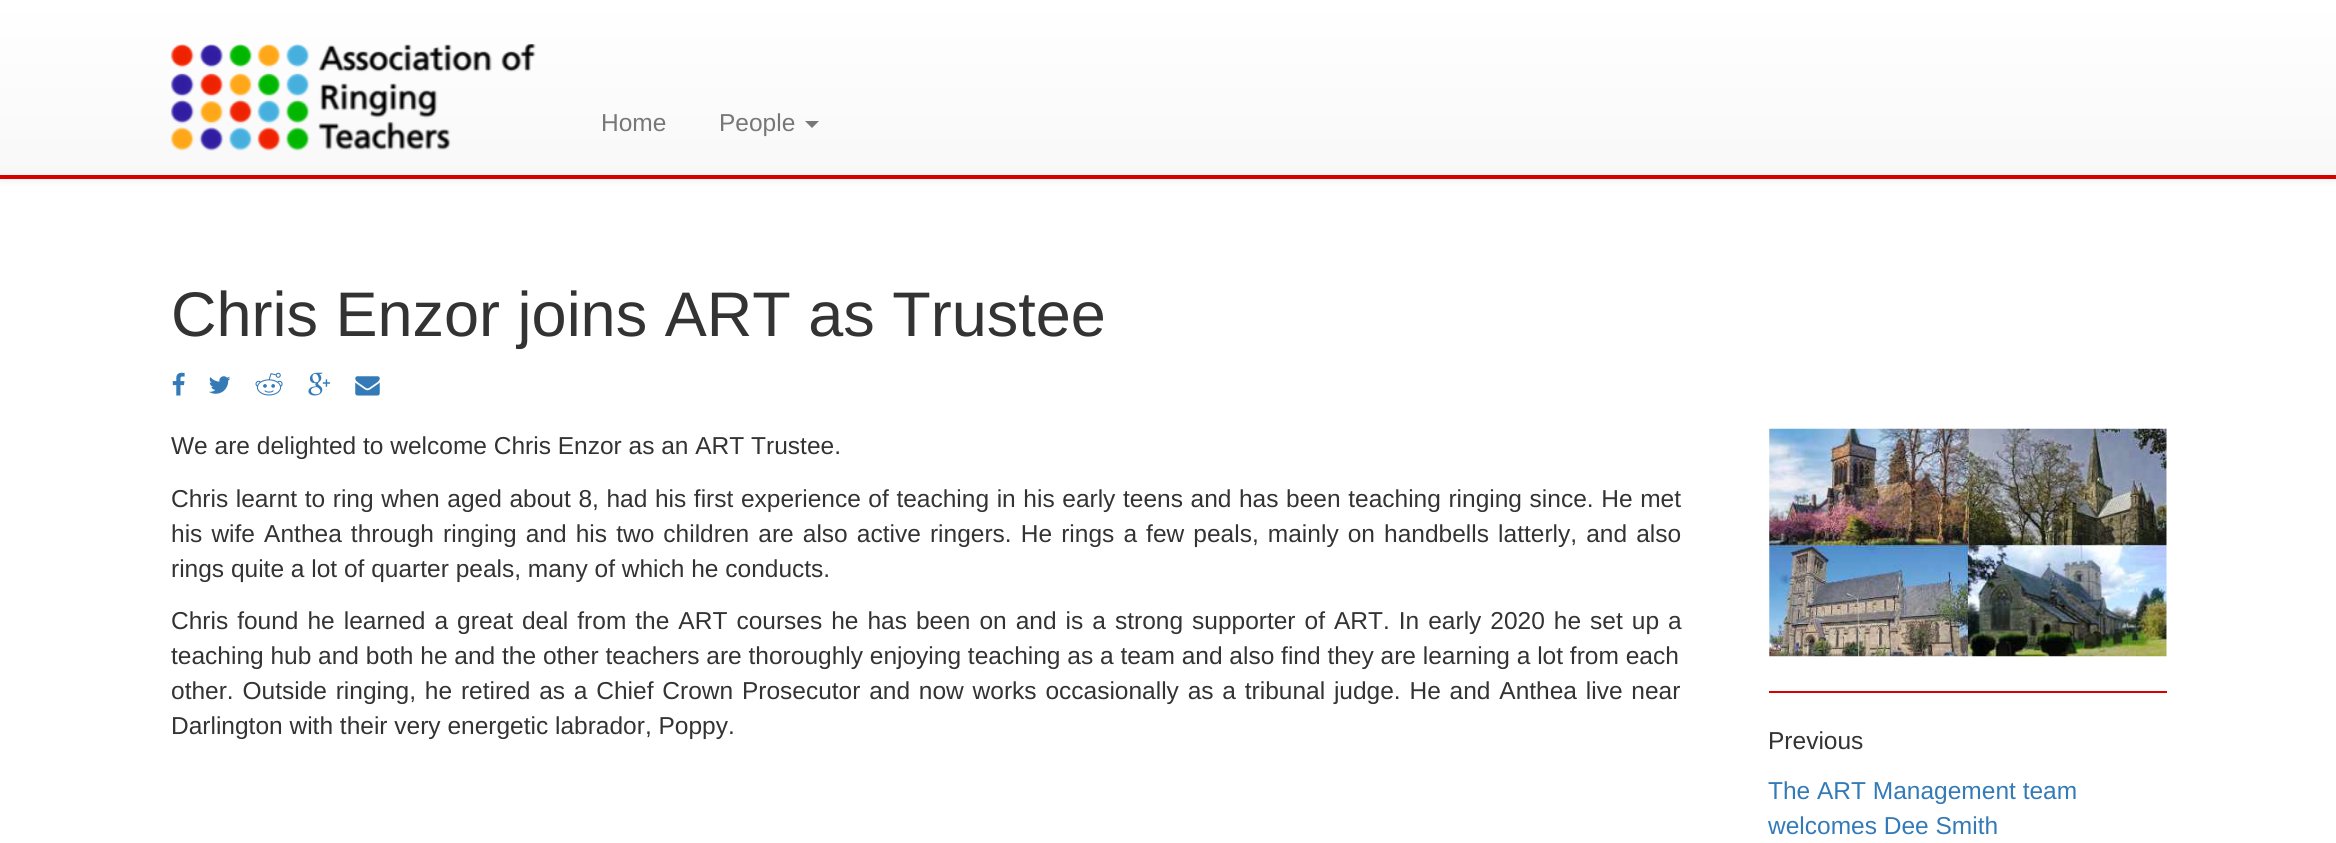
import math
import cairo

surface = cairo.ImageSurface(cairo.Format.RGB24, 2336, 843)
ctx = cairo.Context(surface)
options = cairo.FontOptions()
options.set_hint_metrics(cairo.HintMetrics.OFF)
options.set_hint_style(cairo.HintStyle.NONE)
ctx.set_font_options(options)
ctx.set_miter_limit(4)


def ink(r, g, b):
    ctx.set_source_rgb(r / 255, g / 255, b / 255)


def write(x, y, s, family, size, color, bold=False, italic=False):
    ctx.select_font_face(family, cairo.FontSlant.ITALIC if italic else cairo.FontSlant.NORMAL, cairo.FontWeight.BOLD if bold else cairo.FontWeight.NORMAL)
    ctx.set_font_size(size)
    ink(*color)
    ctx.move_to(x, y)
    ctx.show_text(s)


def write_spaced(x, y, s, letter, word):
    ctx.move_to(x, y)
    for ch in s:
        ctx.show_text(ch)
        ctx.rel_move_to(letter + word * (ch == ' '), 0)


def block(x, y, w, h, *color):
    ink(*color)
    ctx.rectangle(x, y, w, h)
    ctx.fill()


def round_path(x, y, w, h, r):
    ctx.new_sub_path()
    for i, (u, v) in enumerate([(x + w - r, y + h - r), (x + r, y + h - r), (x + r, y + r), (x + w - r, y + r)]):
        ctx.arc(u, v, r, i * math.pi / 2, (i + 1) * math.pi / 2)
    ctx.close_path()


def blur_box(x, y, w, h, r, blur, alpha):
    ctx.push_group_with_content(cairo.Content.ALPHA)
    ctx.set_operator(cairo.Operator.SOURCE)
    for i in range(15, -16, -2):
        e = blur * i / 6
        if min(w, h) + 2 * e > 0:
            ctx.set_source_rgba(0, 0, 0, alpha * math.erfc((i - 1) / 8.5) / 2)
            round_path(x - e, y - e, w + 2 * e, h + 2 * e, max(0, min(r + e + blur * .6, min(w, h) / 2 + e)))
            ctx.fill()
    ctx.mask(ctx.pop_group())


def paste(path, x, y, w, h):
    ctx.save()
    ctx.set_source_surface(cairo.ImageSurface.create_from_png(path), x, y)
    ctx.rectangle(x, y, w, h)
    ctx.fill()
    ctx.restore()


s1 = dict(family="Liberation Sans", size=24.5, color=(119, 119, 119))
s2 = dict(family="Liberation Sans", size=63, color=(51, 51, 51))
s3 = dict(family="Liberation Sans", size=24.5, color=(51, 51, 51))
s4 = dict(family="Liberation Sans", size=24.5, color=(51, 122, 183))

ink(255, 255, 255)
ctx.paint()
ink(0, 0, 0)
blur_box(0, 2, 2336, 178, 0, 4.5, 0.07)
gradient = cairo.LinearGradient(1168, 0, 1168, 175)
gradient.add_color_stop_rgba(0, 1, 1, 1, 1)
gradient.add_color_stop_rgba(1, 0.973, 0.973, 0.973, 1)
ctx.set_source(gradient)
ctx.rectangle(0, 0, 2336, 175)
ctx.fill()
block(0, 175, 2336, 4, 215, 1, 0)
paste("pic1.png", 170, 44, 366, 107)
write(601, 131, "Home", **s1)
write(719, 131, "People", **s1)
ctx.new_path()
ctx.move_to(805, 121)
ctx.line_to(819, 121)
ctx.line_to(812, 128)
ctx.close_path()
ctx.fill()
write(171, 336, "Chris Enzor joins ART as Trustee", **s2)
paste("pic2.png", 172, 372, 13, 24)
paste("pic3.png", 209, 376, 22, 18)
paste("pic4.png", 255, 372, 28, 24)
paste("pic5.png", 308, 372, 23, 24)
paste("pic6.png", 355, 376, 25, 20)
write(171, 454, "We are delighted to welcome Chris Enzor as an ART Trustee.", **s3)
write_spaced(171, 507, "Chris learnt to ring when aged about 8, had his first experience of teaching in his early teens and has been teaching ringing since. He met", 0, 0.8)
write_spaced(171, 542, "his wife Anthea through ringing and his two children are also active ringers. He rings a few peals, mainly on handbells latterly, and also", 0, 2.3)
write(171, 577, "rings quite a lot of quarter peals, many of which he conducts.", **s3)
write_spaced(171, 629, "Chris found he learned a great deal from the ART courses he has been on and is a strong supporter of ART. In early 2020 he set up a", 0, 2.2)
write(171, 664, "teaching hub and both he and the other teachers are thoroughly enjoying teaching as a team and also find they are learning a lot from each", **s3)
write_spaced(171, 699, "other. Outside ringing, he retired as a Chief Crown Prosecutor and now works occasionally as a tribunal judge. He and Anthea live near", 0, 2)
write(171, 734, "Darlington with their very energetic labrador, Poppy.", **s3)
paste("pic7.png", 1769, 428, 398, 229)
block(1769, 691, 398, 2, 215, 1, 0)
write(1768, 749, "Previous", **s3)
write(1768, 799, "The ART Management team", **s4)
write(1768, 834, "welcomes Dee Smith", **s4)
surface.write_to_png("screenshot.png")
